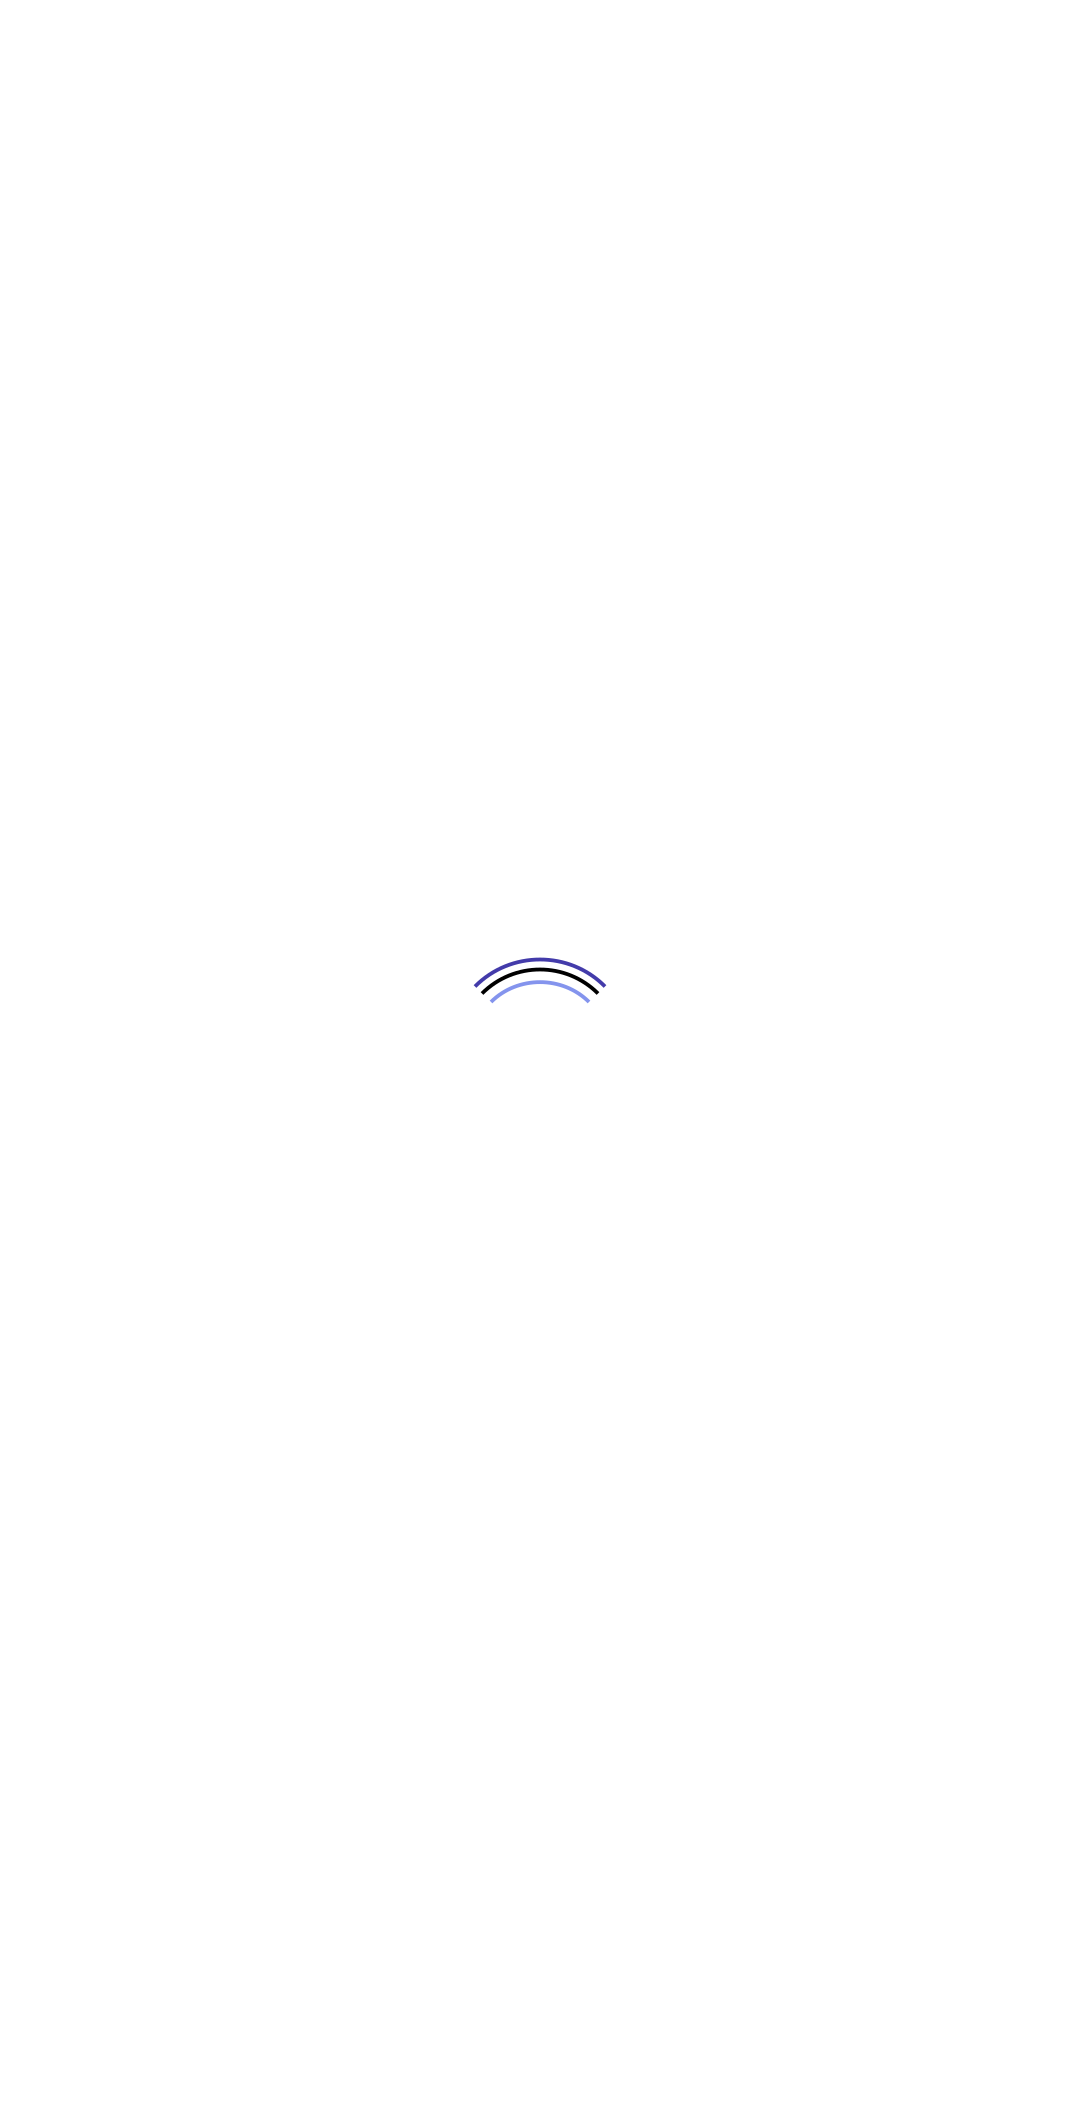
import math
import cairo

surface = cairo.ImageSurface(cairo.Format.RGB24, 1078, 2102)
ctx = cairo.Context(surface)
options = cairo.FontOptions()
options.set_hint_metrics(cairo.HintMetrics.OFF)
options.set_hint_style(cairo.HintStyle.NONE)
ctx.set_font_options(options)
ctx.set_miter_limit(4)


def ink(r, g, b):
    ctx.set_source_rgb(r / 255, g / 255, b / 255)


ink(255, 255, 255)
ctx.paint()
ctx.new_path()
ctx.move_to(475, 986.5)
ctx.curve_to(510.5, 950.5, 569.5, 950.5, 605, 986.5)
ink(67, 59, 170)
ctx.set_line_width(3.8)
ctx.stroke()
ctx.new_path()
ctx.move_to(482, 993.5)
ctx.curve_to(514, 961.5, 566, 961.5, 598, 993.5)
ink(0, 0, 0)
ctx.stroke()
ctx.new_path()
ctx.move_to(491, 1002)
ctx.curve_to(517.5, 975.5, 562.5, 975.5, 589, 1002)
ink(132, 148, 237)
ctx.stroke()
surface.write_to_png("screenshot.png")
